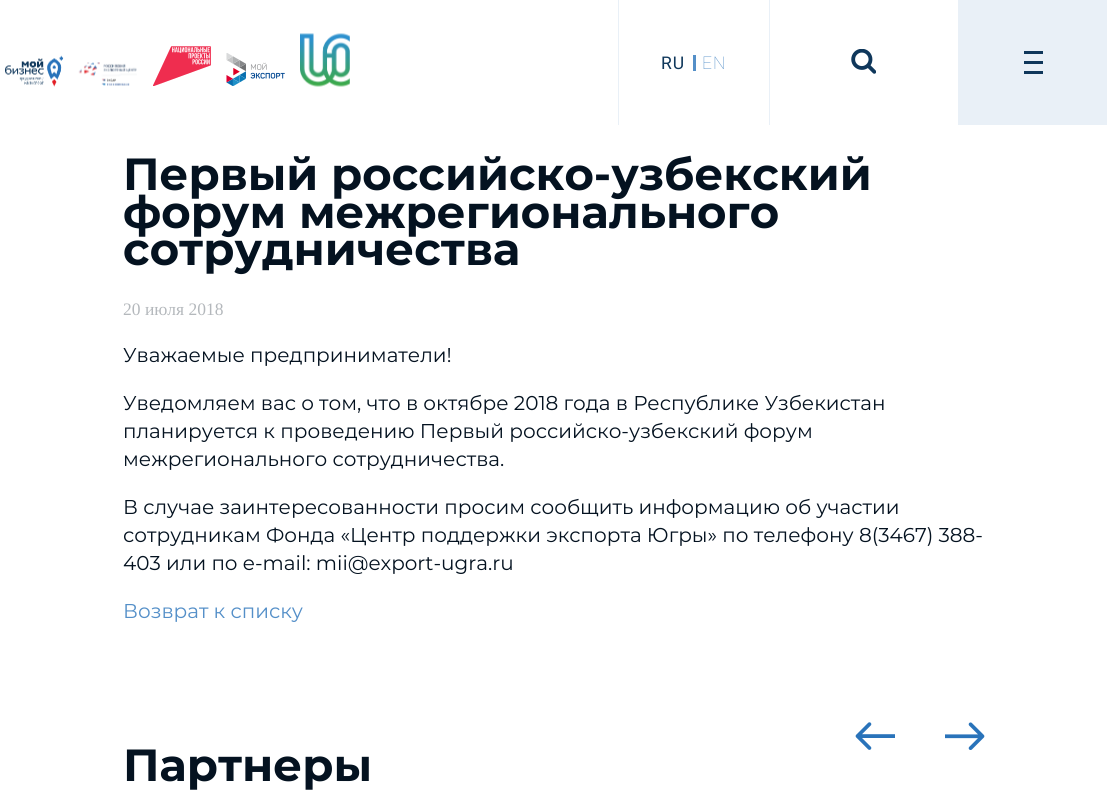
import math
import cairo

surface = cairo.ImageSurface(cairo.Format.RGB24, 1107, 794)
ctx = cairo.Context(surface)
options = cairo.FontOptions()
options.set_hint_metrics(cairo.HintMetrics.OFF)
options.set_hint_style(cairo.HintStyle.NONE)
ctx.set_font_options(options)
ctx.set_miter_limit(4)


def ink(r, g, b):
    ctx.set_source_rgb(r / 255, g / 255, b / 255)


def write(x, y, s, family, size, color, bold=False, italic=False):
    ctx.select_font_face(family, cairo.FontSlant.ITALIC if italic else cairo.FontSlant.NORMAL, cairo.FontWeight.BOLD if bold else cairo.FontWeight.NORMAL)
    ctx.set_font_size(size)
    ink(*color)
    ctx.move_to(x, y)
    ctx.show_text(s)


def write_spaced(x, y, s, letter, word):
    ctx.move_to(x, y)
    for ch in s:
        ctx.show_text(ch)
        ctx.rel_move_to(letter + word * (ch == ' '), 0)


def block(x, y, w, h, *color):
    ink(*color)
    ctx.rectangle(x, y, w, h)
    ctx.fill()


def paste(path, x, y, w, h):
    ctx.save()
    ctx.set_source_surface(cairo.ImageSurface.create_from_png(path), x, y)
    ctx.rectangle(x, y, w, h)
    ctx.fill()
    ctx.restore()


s1 = dict(family="Montserrat", size=45, color=(4, 18, 32), bold=True)
s2 = dict(family="Liberation Serif", size=17.5, color=(180, 184, 188))
s3 = dict(family="Montserrat", size=20, color=(4, 18, 32))
s4 = dict(family="Montserrat", size=20, color=(84, 143, 200))

ink(255, 255, 255)
ctx.paint()
paste("pic1.png", 5, 55, 59, 32)
paste("pic2.png", 78, 62, 59, 24)
paste("pic3.png", 153, 46, 58, 40)
paste("pic4.png", 226, 53, 59, 33)
paste("pic5.png", 300, 33, 50, 54)
block(618, 0, 1, 125, 233, 240, 247)
ctx.select_font_face("Roboto")
ctx.set_font_size(17.5)
ink(15, 55, 91)
write_spaced(661, 69, "RU", 1, 0)
block(693, 55, 3, 16, 84, 143, 200)
ctx.select_font_face("Roboto Thin")
write_spaced(702, 69, "EN", 1, 0)
block(769, 0, 1, 125, 233, 240, 247)
paste("pic6.png", 851, 49, 25, 25)
block(958, 0, 149, 125, 233, 240, 247)
block(1024, 51, 19, 3, 15, 55, 91)
block(1024, 61, 19, 3, 15, 55, 91)
block(1024, 71, 19, 3, 15, 55, 91)
write(123, 190, "Первый российско-узбекский", **s1)
write(123, 228, "форум межрегионального", **s1)
write(123, 265, "сотрудничества", **s1)
write(123, 315, "20 июля 2018", **s2)
write(123, 362, "Уважаемые предприниматели!", **s3)
write(123, 410, "Уведомляем вас о том, что в октябре 2018 года в Республике Узбекистан", **s3)
write(123, 438, "планируется к проведению Первый российско-узбекский форум", **s3)
write(123, 466, "межрегионального сотрудничества.", **s3)
write(123, 514, "В случае заинтересованности просим сообщить информацию об участии", **s3)
write(123, 542, "сотрудникам Фонда «Центр поддержки экспорта Югры» по телефону 8(3467) 388-", **s3)
write(123, 570, "403 или по e-mail: mii@export-ugra.ru", **s3)
write(123, 618, "Возврат к списку", **s4)
paste("pic7.png", 855, 722, 40, 28)
paste("pic8.png", 945, 722, 40, 28)
write(123, 781, "Партнеры", **s1)
surface.write_to_png("screenshot.png")
